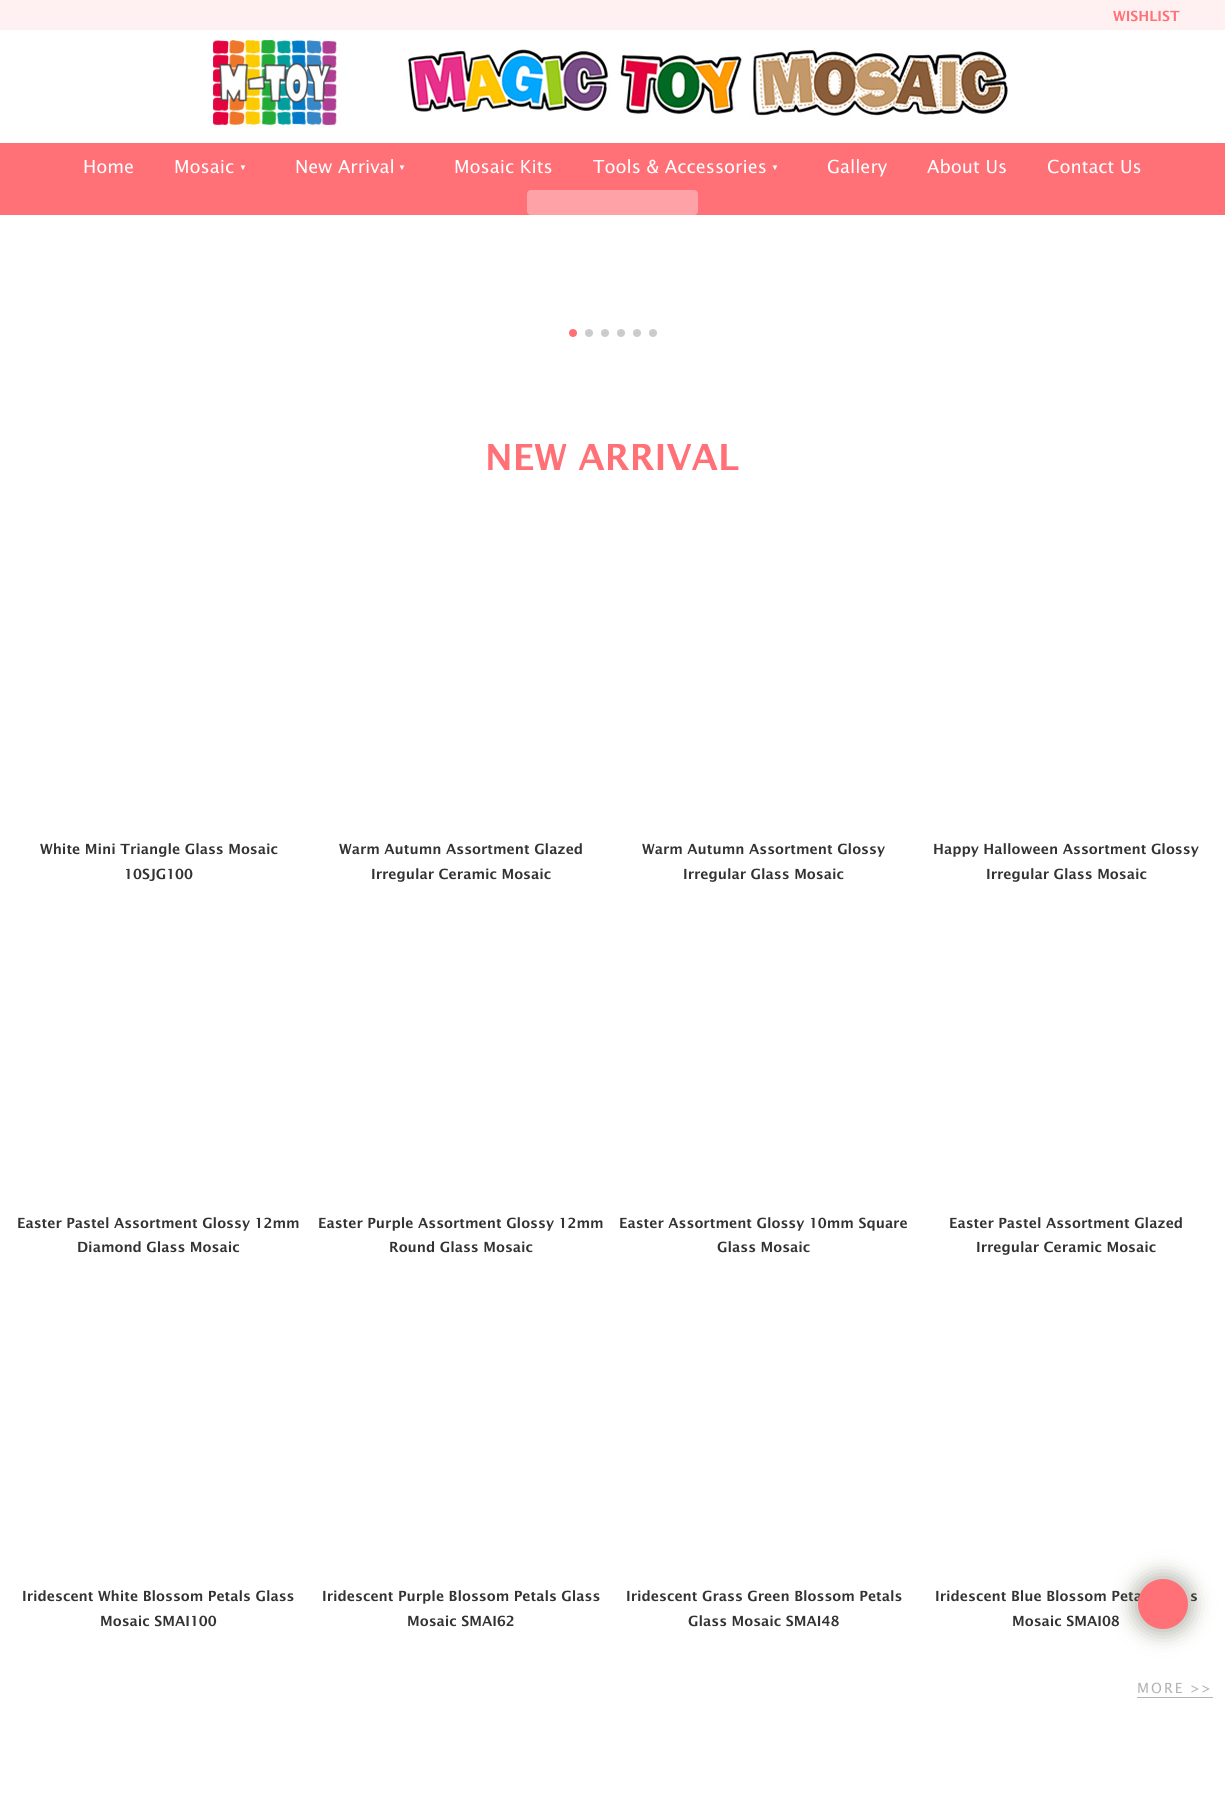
import math
import cairo

surface = cairo.ImageSurface(cairo.Format.RGB24, 1225, 1810)
ctx = cairo.Context(surface)
options = cairo.FontOptions()
options.set_hint_metrics(cairo.HintMetrics.OFF)
options.set_hint_style(cairo.HintStyle.NONE)
ctx.set_font_options(options)
ctx.set_miter_limit(4)


def ink(r, g, b):
    ctx.set_source_rgb(r / 255, g / 255, b / 255)


def write(x, y, s, family, size, color, bold=False, italic=False):
    ctx.select_font_face(family, cairo.FontSlant.ITALIC if italic else cairo.FontSlant.NORMAL, cairo.FontWeight.BOLD if bold else cairo.FontWeight.NORMAL)
    ctx.set_font_size(size)
    ink(*color)
    ctx.move_to(x, y)
    ctx.show_text(s)


def write_spaced(x, y, s, letter, word):
    ctx.move_to(x, y)
    for ch in s:
        ctx.show_text(ch)
        ctx.rel_move_to(letter + word * (ch == ' '), 0)


def block(x, y, w, h, *color):
    ink(*color)
    ctx.rectangle(x, y, w, h)
    ctx.fill()


def round_path(x, y, w, h, r):
    ctx.new_sub_path()
    for i, (u, v) in enumerate([(x + w - r, y + h - r), (x + r, y + h - r), (x + r, y + r), (x + w - r, y + r)]):
        ctx.arc(u, v, r, i * math.pi / 2, (i + 1) * math.pi / 2)
    ctx.close_path()


def blur_box(x, y, w, h, r, blur, alpha):
    ctx.push_group_with_content(cairo.Content.ALPHA)
    ctx.set_operator(cairo.Operator.SOURCE)
    for i in range(15, -16, -2):
        e = blur * i / 6
        if min(w, h) + 2 * e > 0:
            ctx.set_source_rgba(0, 0, 0, alpha * math.erfc((i - 1) / 8.5) / 2)
            round_path(x - e, y - e, w + 2 * e, h + 2 * e, max(0, min(r + e + blur * .6, min(w, h) / 2 + e)))
            ctx.fill()
    ctx.mask(ctx.pop_group())


def paste(path, x, y, w, h):
    ctx.save()
    ctx.set_source_surface(cairo.ImageSurface.create_from_png(path), x, y)
    ctx.rectangle(x, y, w, h)
    ctx.fill()
    ctx.restore()


s1 = dict(family="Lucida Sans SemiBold", size=14, color=(255, 112, 119))
s2 = dict(family="Lucida Sans", size=18, color=(255, 255, 255))
s3 = dict(family="Liberation Sans", size=8, color=(255, 255, 255))
s4 = dict(family="Lucida Sans SemiBold", size=36, color=(255, 112, 119))
s5 = dict(family="Lucida Sans SemiBold", size=14, color=(51, 51, 51))

ink(255, 255, 255)
ctx.paint()
block(0, 0, 1225, 30, 255, 241, 241)
write(1113, 21, "WISHLIST", **s1)
paste("pic1.png", 213, 40, 795, 88)
block(0, 143, 1225, 72, 255, 112, 119)
write(83, 173, "Home", **s2)
write(174, 173, "Mosaic", **s2)
write(239, 170, "▼", **s3)
write(295, 173, "New Arrival", **s2)
write(398, 170, "▼", **s3)
write(454, 173, "Mosaic Kits", **s2)
write(593, 173, "Tools & Accessories", **s2)
write(771, 170, "▼", **s3)
write(827, 173, "Gallery", **s2)
write(927, 173, "About Us", **s2)
write(1047, 173, "Contact Us", **s2)
ink(255, 162, 167)
round_path(527, 190, 171, 25, 4)
ctx.fill()
ink(255, 112, 119)
ctx.arc(573, 333, 4, 0, 2 * math.pi)
ctx.fill()
ink(204, 204, 204)
ctx.arc(589, 333, 4, 0, 2 * math.pi)
ctx.fill()
ctx.arc(605, 333, 4, 0, 2 * math.pi)
ctx.fill()
ctx.arc(621, 333, 4, 0, 2 * math.pi)
ctx.fill()
ctx.arc(637, 333, 4, 0, 2 * math.pi)
ctx.fill()
ctx.arc(653, 333, 4, 0, 2 * math.pi)
ctx.fill()
write(485, 470, "NEW ARRIVAL", **s4)
write(40, 854, "White Mini Triangle Glass Mosaic", **s5)
write(124, 879, "10SJG100", **s5)
write(339, 854, "Warm Autumn Assortment Glazed", **s5)
write(371, 879, "Irregular Ceramic Mosaic", **s5)
write(642, 854, "Warm Autumn Assortment Glossy", **s5)
write(683, 879, "Irregular Glass Mosaic", **s5)
write(933, 854, "Happy Halloween Assortment Glossy", **s5)
write(986, 879, "Irregular Glass Mosaic", **s5)
write(17, 1228, "Easter Pastel Assortment Glossy 12mm", **s5)
write(77, 1252, "Diamond Glass Mosaic", **s5)
write(318, 1228, "Easter Purple Assortment Glossy 12mm", **s5)
write(389, 1252, "Round Glass Mosaic", **s5)
write(619, 1228, "Easter Assortment Glossy 10mm Square", **s5)
write(717, 1252, "Glass Mosaic", **s5)
write(949, 1228, "Easter Pastel Assortment Glazed", **s5)
write(976, 1252, "Irregular Ceramic Mosaic", **s5)
write(22, 1601, "Iridescent White Blossom Petals Glass", **s5)
write(100, 1626, "Mosaic SMAI100", **s5)
write(322, 1601, "Iridescent Purple Blossom Petals Glass", **s5)
write(407, 1626, "Mosaic SMAI62", **s5)
write(626, 1601, "Iridescent Grass Green Blossom Petals", **s5)
write(688, 1626, "Glass Mosaic SMAI48", **s5)
write(935, 1601, "Iridescent Blue Blossom Peta", **s5)
write(1190, 1601, "s", **s5)
write(1012, 1626, "Mosaic SMAI08", **s5)
ctx.select_font_face("Lucida Sans")
ink(179, 179, 179)
write_spaced(1137, 1693, "MORE >>", 2, 0)
block(1137, 1697, 76, 1, 179, 179, 179)
ink(95, 94, 74)
blur_box(1133, 1574, 60, 60, 30, 10, 0.45)
ink(255, 112, 119)
ctx.arc(1163, 1604, 25, 0, 2 * math.pi)
ctx.fill()
surface.write_to_png("screenshot.png")
